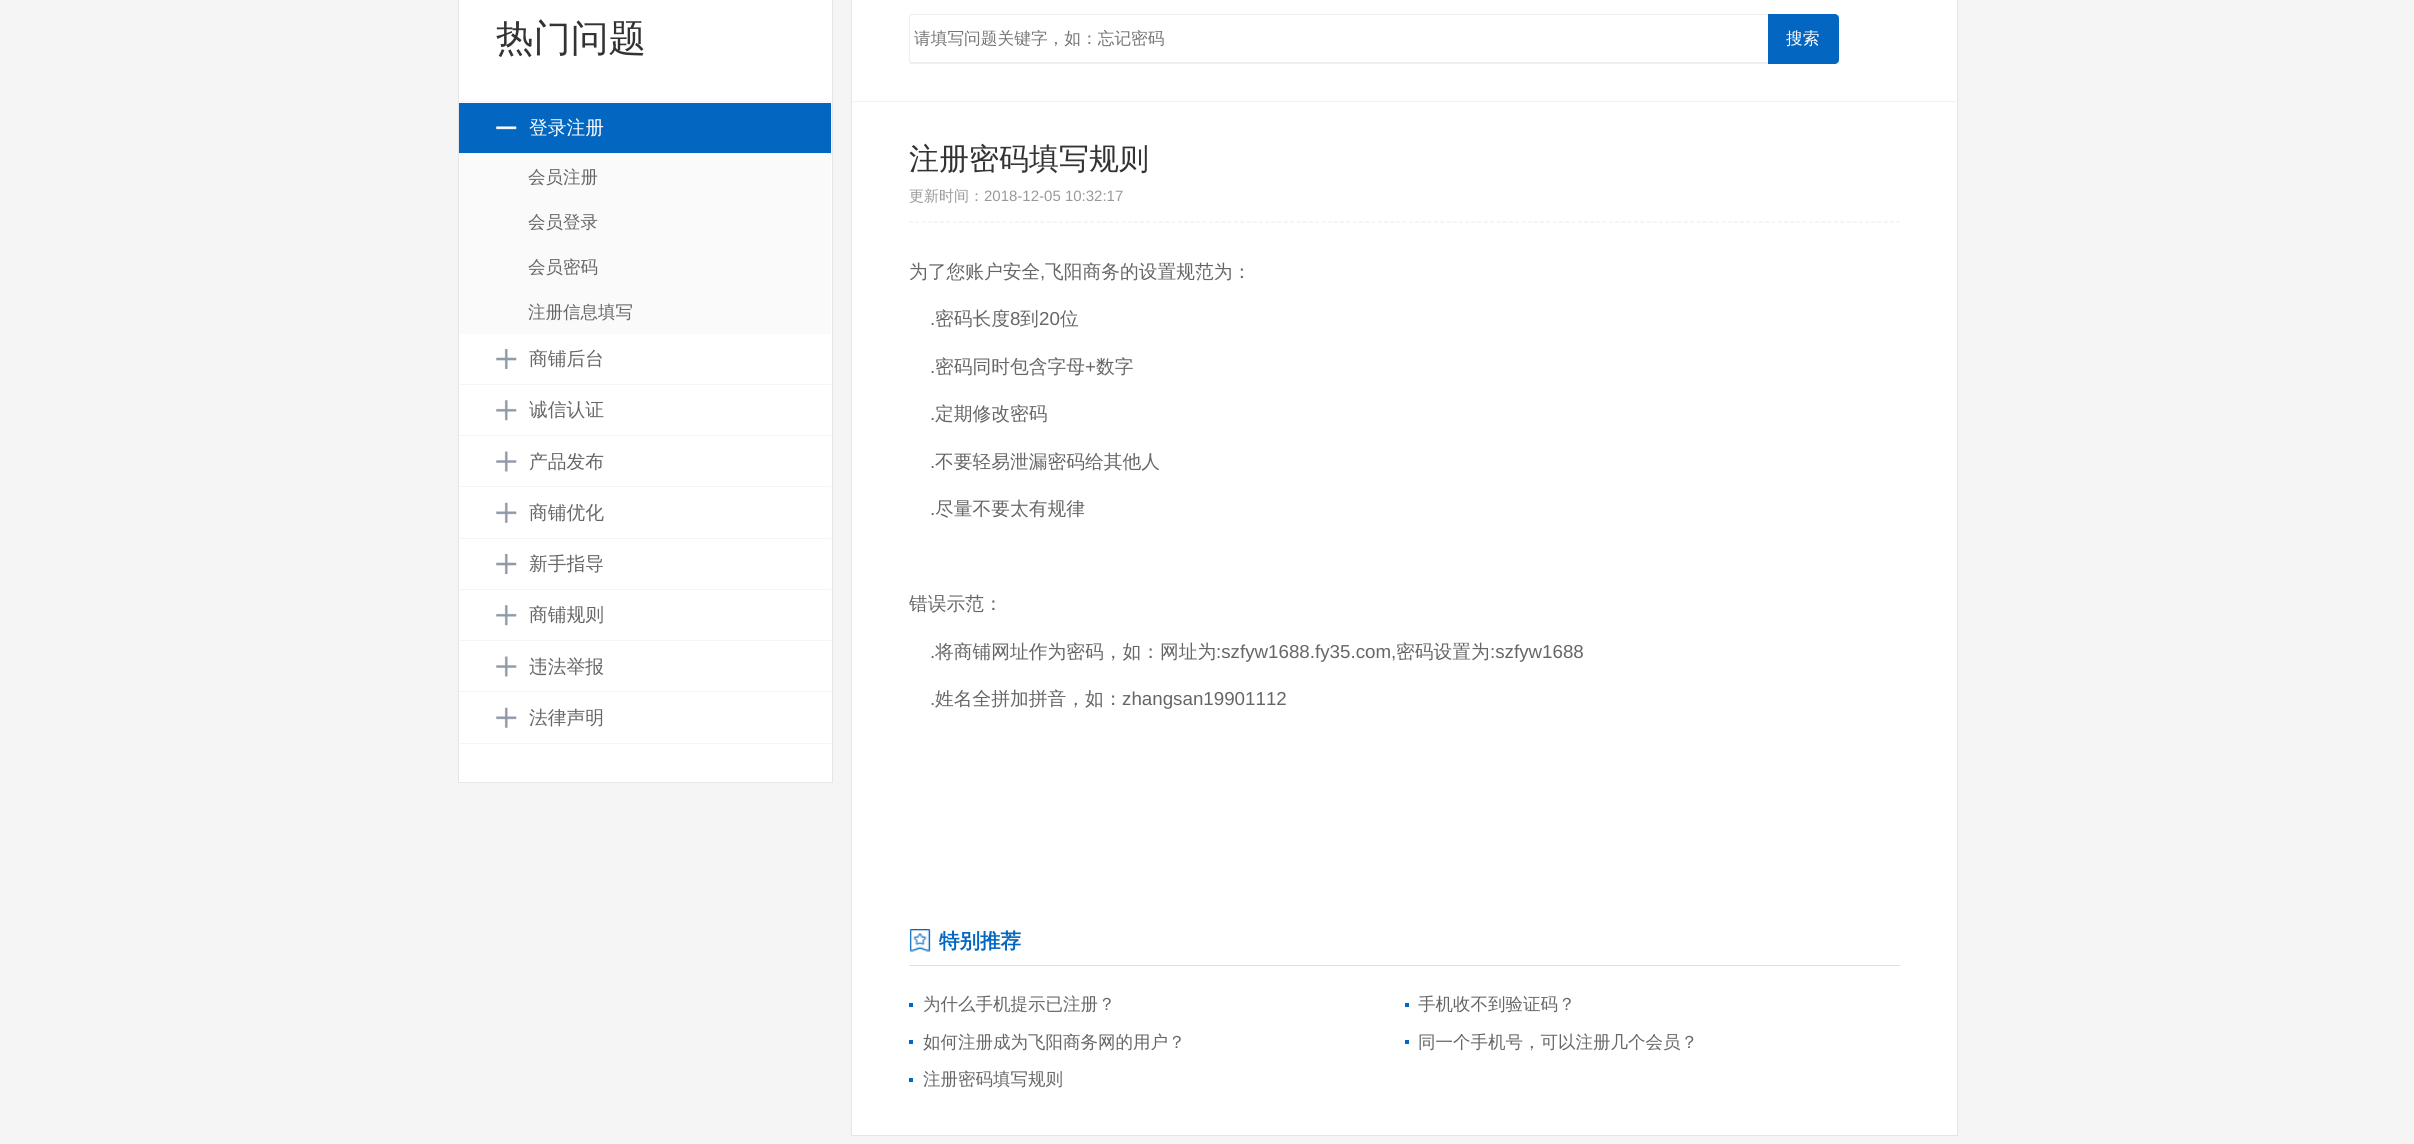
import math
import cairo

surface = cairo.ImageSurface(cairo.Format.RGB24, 2414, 1144)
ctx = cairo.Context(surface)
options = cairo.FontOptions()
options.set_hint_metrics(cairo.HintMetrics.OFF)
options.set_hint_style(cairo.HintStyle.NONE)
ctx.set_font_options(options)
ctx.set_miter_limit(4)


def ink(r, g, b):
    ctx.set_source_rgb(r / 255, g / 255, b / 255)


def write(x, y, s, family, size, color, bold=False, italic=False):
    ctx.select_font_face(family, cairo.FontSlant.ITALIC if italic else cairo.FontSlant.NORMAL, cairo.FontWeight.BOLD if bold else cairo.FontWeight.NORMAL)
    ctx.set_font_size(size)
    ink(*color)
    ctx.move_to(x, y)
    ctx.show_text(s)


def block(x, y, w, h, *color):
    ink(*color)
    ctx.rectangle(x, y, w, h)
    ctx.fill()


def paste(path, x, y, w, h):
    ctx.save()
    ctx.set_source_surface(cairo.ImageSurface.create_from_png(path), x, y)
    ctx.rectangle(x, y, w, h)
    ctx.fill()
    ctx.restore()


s1 = dict(family="WenQuanYi Zen Hei Medium", size=37.5, color=(51, 51, 51))
s2 = dict(family="WenQuanYi Zen Hei Medium", size=18.75, color=(255, 255, 255))
s3 = dict(family="WenQuanYi Zen Hei Medium", size=17.5, color=(102, 102, 102))
s4 = dict(family="WenQuanYi Zen Hei Medium", size=18.75, color=(102, 102, 102))
s5 = dict(family="WenQuanYi Zen Hei Medium", size=16.7, color=(117, 117, 117))
s6 = dict(family="WenQuanYi Zen Hei Medium", size=16.7, color=(255, 255, 255))
s7 = dict(family="WenQuanYi Zen Hei Medium", size=30, color=(51, 51, 51))
s8 = dict(family="WenQuanYi Zen Hei Medium", size=15, color=(153, 153, 153))
s9 = dict(family="Liberation Sans", size=15, color=(153, 153, 153))
s10 = dict(family="Liberation Sans", size=18.75, color=(102, 102, 102))
s11 = dict(family="WenQuanYi Zen Hei", size=20.5, color=(3, 102, 193), bold=True)

ink(245, 245, 245)
ctx.paint()
ink(255, 255, 255)
ctx.rectangle(458.5, -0.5, 374, 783)
ctx.fill_preserve()
ink(229, 229, 229)
ctx.set_line_width(1)
ctx.stroke()
block(459, 101, 372, 1, 245, 245, 245)
write(496, 51, "热门问题", **s1)
block(459, 103, 372, 50, 3, 102, 193)
block(459, 153, 372, 1, 245, 245, 245)
paste("pic1.png", 496, 126, 21, 4)
write(529, 134, "登录注册", **s2)
block(459, 154, 372, 180, 250, 250, 250)
write(528, 183, "会员注册", **s3)
write(528, 228, "会员登录", **s3)
write(528, 273, "会员密码", **s3)
write(528, 318, "注册信息填写", **s3)
block(459, 384, 372, 1, 245, 245, 245)
paste("pic2.png", 496, 349, 21, 20)
write(529, 365, "商铺后台", **s4)
block(459, 435, 372, 1, 245, 245, 245)
paste("pic3.png", 496, 400, 21, 21)
write(529, 416, "诚信认证", **s4)
block(459, 486, 372, 1, 245, 245, 245)
paste("pic4.png", 496, 451, 21, 21)
write(529, 468, "产品发布", **s4)
block(459, 538, 372, 1, 245, 245, 245)
paste("pic5.png", 496, 502, 21, 21)
write(529, 519, "商铺优化", **s4)
block(459, 589, 372, 1, 245, 245, 245)
paste("pic2.png", 496, 554, 21, 20)
write(529, 570, "新手指导", **s4)
block(459, 640, 372, 1, 245, 245, 245)
paste("pic3.png", 496, 605, 21, 21)
write(529, 621, "商铺规则", **s4)
block(459, 691, 372, 1, 245, 245, 245)
paste("pic4.png", 496, 656, 21, 21)
write(529, 673, "违法举报", **s4)
block(459, 743, 372, 1, 245, 245, 245)
paste("pic5.png", 496, 707, 21, 21)
write(529, 724, "法律声明", **s4)
ink(255, 255, 255)
ctx.rectangle(851.5, -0.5, 1106, 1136)
ctx.fill_preserve()
ink(229, 229, 229)
ctx.stroke()
block(853, 101, 1103, 1, 242, 242, 242)
ink(238, 238, 238)
ctx.set_fill_rule(cairo.FillRule.EVEN_ODD)
ctx.new_path()
ctx.move_to(912, 14)
ctx.line_to(1768, 14)
ctx.line_to(1768, 64)
ctx.line_to(912, 64)
ctx.curve_to(910, 64, 909, 62, 909, 60)
ctx.line_to(909, 18)
ctx.curve_to(909, 15, 910, 14, 912, 14)
ctx.close_path()
ctx.move_to(912, 15)
ctx.line_to(1768, 15)
ctx.line_to(1768, 62)
ctx.line_to(912, 62)
ctx.curve_to(911, 62, 910, 61, 910, 60)
ctx.line_to(910, 18)
ctx.curve_to(910, 16, 911, 15, 912, 15)
ctx.close_path()
ctx.fill()
write(914, 44, "请填写问题关键字，如：忘记密码", **s5)
ink(3, 102, 193)
ctx.new_path()
ctx.move_to(1768, 14)
ctx.line_to(1835, 14)
ctx.curve_to(1837, 14, 1839, 16, 1839, 18)
ctx.line_to(1839, 60)
ctx.curve_to(1839, 62, 1837, 64, 1835, 64)
ctx.line_to(1768, 64)
ctx.close_path()
ctx.fill()
write(1786, 44, "搜索", **s6)
write(909, 169, "注册密码填写规则", **s7)
ctx.new_path()
ctx.move_to(909, 222)
ctx.line_to(1900, 222)
ink(238, 238, 238)
ctx.set_line_width(1.2)
ctx.set_dash([3.75, 2.5])
ctx.stroke()
write(909, 201, "更新时间：", **s8)
write(984, 201, "2018-12-05 10:32:17", **s9)
write(909, 278, "为了您账户安全", **s4)
write(1040, 278, ",", **s10)
write(1045, 278, "飞阳商务的设置规范为：", **s4)
write(930, 325, ".", **s10)
write(935, 325, "密码长度", **s4)
write(1010, 325, "8", **s10)
write(1020, 325, "到", **s4)
write(1039, 325, "20", **s10)
write(1060, 325, "位", **s4)
write(930, 373, ".", **s10)
write(935, 373, "密码同时包含字母", **s4)
write(1085, 373, "+", **s10)
write(1096, 373, "数字", **s4)
write(930, 420, ".", **s10)
write(935, 420, "定期修改密码", **s4)
write(930, 468, ".", **s10)
write(935, 468, "不要轻易泄漏密码给其他人", **s4)
write(930, 515, ".", **s10)
write(935, 515, "尽量不要太有规律", **s4)
write(909, 610, "错误示范：", **s4)
write(930, 658, ".", **s10)
write(935, 658, "将商铺网址作为密码，如：网址为", **s4)
write(1216, 658, ":szfyw1688.fy35.com,", **s10)
write(1396, 658, "密码设置为", **s4)
write(1490, 658, ":szfyw1688", **s10)
write(930, 705, ".", **s10)
write(935, 705, "姓名全拼加拼音，如：", **s4)
write(1122, 705, "zhangsan19901112", **s10)
block(909, 965, 991, 1, 223, 223, 223)
paste("pic6.png", 909, 929, 22, 23)
write(939, 948, "特别推荐", **s11)
block(909, 1003, 4, 4, 3, 102, 193)
write(923, 1010, "为什么手机提示已注册？", **s3)
block(1405, 1003, 4, 4, 3, 102, 193)
write(1418, 1010, "手机收不到验证码？", **s3)
block(909, 1040, 4, 4, 3, 102, 193)
write(923, 1048, "如何注册成为飞阳商务网的用户？", **s3)
block(1405, 1040, 4, 4, 3, 102, 193)
write(1418, 1048, "同一个手机号，可以注册几个会员？", **s3)
block(909, 1078, 4, 4, 3, 102, 193)
write(923, 1085, "注册密码填写规则", **s3)
surface.write_to_png("screenshot.png")
